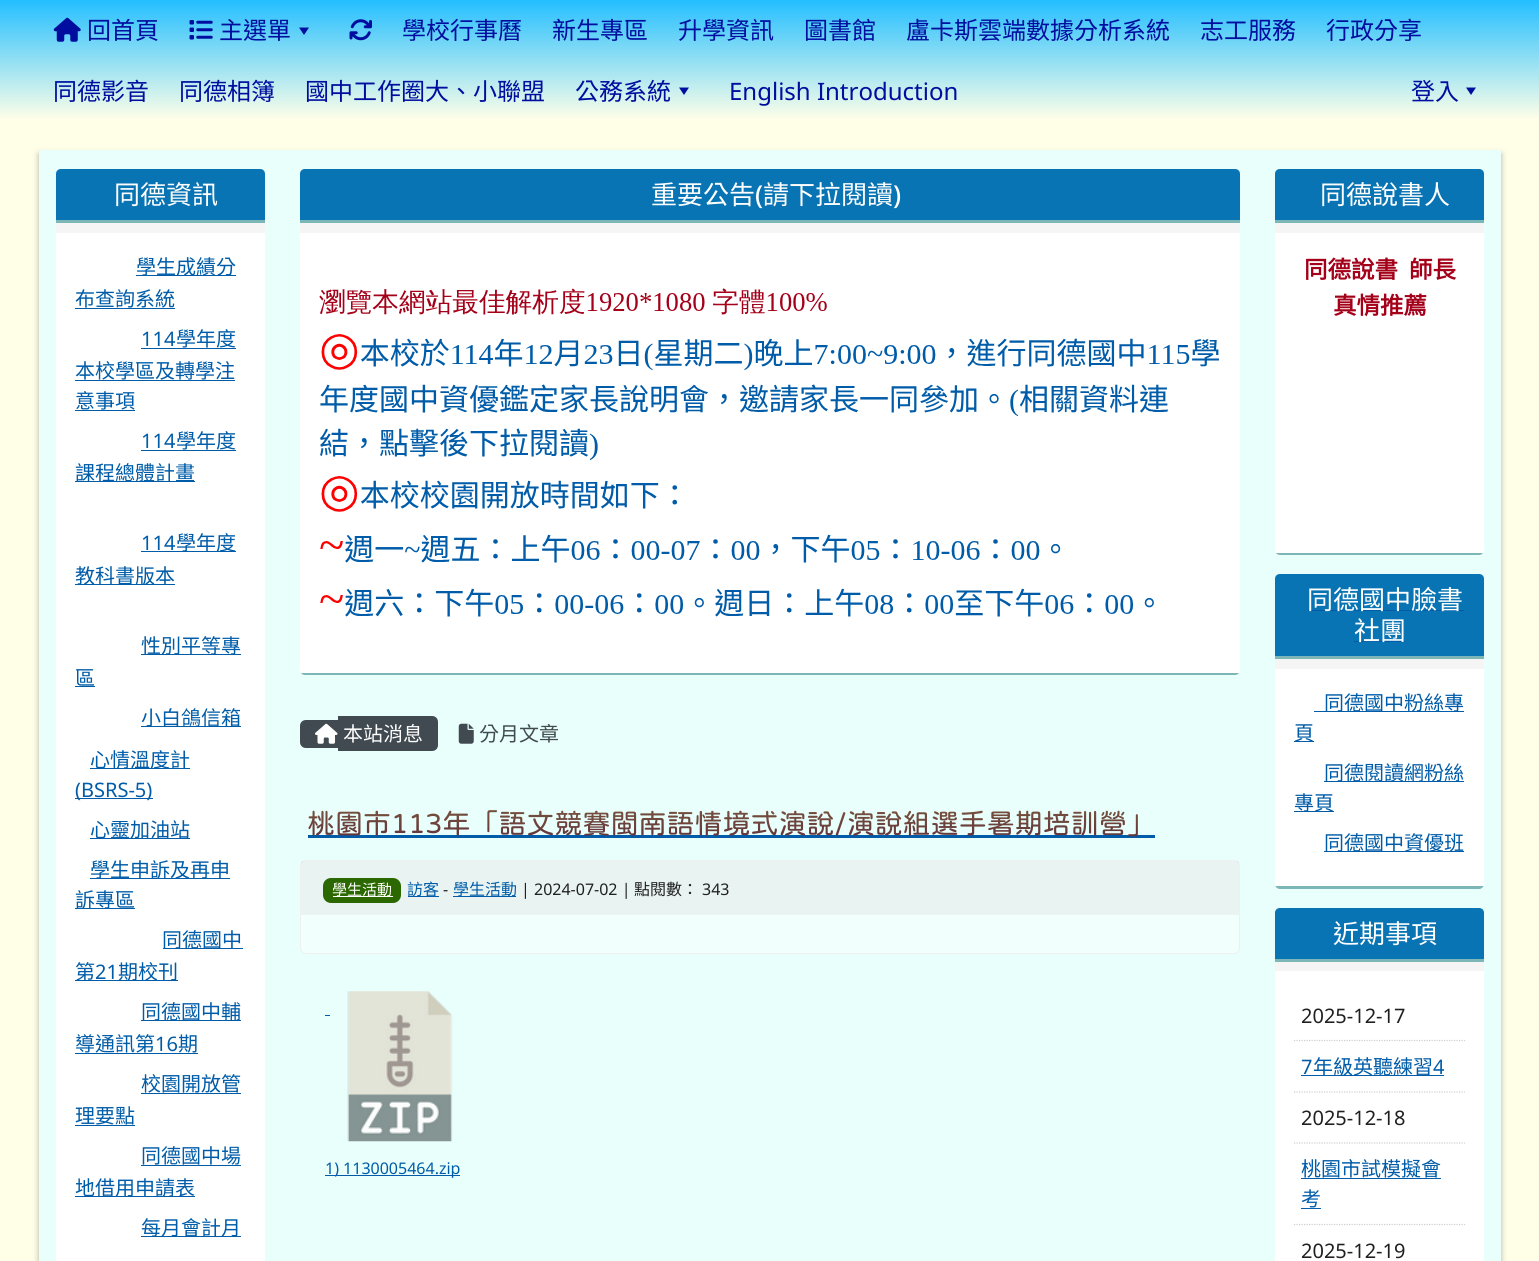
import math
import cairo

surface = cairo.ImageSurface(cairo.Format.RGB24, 1539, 1261)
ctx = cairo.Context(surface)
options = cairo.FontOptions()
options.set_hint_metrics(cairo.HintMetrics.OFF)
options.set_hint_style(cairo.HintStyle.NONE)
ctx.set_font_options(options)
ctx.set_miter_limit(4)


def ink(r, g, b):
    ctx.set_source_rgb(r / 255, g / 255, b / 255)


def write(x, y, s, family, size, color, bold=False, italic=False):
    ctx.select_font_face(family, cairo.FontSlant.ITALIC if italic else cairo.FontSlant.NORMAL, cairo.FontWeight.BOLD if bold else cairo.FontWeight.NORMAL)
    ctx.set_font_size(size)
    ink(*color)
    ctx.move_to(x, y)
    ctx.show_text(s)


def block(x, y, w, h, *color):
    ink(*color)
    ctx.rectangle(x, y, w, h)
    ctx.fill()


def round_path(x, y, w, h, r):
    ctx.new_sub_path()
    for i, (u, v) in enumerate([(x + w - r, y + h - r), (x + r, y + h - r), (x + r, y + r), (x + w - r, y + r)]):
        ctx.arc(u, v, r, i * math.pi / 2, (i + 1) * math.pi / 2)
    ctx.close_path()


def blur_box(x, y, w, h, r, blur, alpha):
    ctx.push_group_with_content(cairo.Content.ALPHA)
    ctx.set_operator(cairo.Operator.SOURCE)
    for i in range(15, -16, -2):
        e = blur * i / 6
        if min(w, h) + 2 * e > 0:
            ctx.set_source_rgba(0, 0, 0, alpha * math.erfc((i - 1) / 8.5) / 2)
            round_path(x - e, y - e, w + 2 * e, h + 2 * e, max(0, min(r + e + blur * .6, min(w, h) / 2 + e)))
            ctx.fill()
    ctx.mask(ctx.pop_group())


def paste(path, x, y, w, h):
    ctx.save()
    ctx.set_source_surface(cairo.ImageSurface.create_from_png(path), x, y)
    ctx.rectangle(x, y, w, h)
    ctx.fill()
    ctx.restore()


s1 = dict(family="Noto Sans CJK TC", size=24, color=(0, 13, 159))
s2 = dict(family="Noto Sans", size=24, color=(0, 13, 159))
s3 = dict(family="Noto Sans CJK TC", size=26, color=(255, 255, 255))
s4 = dict(family="Noto Sans CJK TC", size=20, color=(0, 92, 168))
s5 = dict(family="Noto Sans", size=20, color=(0, 92, 168))
s6 = dict(family="Noto Sans Medium", size=26, color=(255, 255, 255))
s7 = dict(family="Noto Sans CJK TC", size=20, color=(255, 255, 255))
s8 = dict(family="Noto Sans CJK TC", size=20, color=(64, 74, 80))
s9 = dict(family="Noto Sans CJK TC", size=15, color=(255, 255, 255))
s10 = dict(family="Noto Sans CJK TC", size=16, color=(0, 92, 168))
s11 = dict(family="Noto Sans", size=16, color=(32, 32, 32))
s12 = dict(family="Noto Sans CJK TC", size=16, color=(32, 32, 32))
s13 = dict(family="Noto Sans", size=16, color=(0, 92, 168))
s14 = dict(family="Noto Sans CJK TC", size=23.5, color=(164, 0, 25), bold=True)
s15 = dict(family="Noto Sans", size=20, color=(32, 32, 32))

ink(255, 255, 232)
ctx.paint()
gradient = cairo.LinearGradient(770, 0, 770, 120)
gradient.add_color_stop_rgba(0, 0.141, 0.749, 1, 1)
gradient.add_color_stop_rgba(1, 1, 1, 0.91, 1)
ctx.set_source(gradient)
ctx.rectangle(0, 0, 1539, 119)
ctx.fill()
paste("pic1.png", 53, 17, 28, 25)
write(87, 39, "回首頁", **s1)
paste("pic2.png", 189, 20, 24, 20)
write(219, 39, "主選單", **s1)
ctx.new_path()
ctx.move_to(299, 27.5)
ctx.line_to(309, 27.5)
ctx.line_to(304, 35)
ctx.close_path()
ctx.fill()
paste("pic3.png", 349, 19, 23, 22)
write(402, 39, "學校行事曆", **s1)
write(552, 39, "新生專區", **s1)
write(678, 39, "升學資訊", **s1)
write(804, 39, "圖書館", **s1)
write(906, 39, "盧卡斯雲端數據分析系統", **s1)
write(1200, 39, "志工服務", **s1)
write(1326, 39, "行政分享", **s1)
write(53, 100, "同德影音", **s1)
write(179, 100, "同德相簿", **s1)
write(305, 100, "國中工作圈大、小聯盟", **s1)
write(575, 100, "公務系統", **s1)
ctx.new_path()
ctx.move_to(679, 87.5)
ctx.line_to(689, 87.5)
ctx.line_to(684, 95)
ctx.close_path()
ctx.fill()
write(729, 100, "English Introduction", **s2)
write(1411, 100, "登入", **s1)
ctx.new_path()
ctx.move_to(1466, 87.5)
ctx.line_to(1476, 87.5)
ctx.line_to(1471, 95)
ctx.close_path()
ctx.fill()
ink(50, 50, 50)
blur_box(39, 154, 1462, 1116, 0, 3, 0.4)
block(39, 150, 1462, 1111, 232, 255, 251)
ink(245, 245, 245)
round_path(56, 169, 209, 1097, 5)
ctx.fill()
ink(9, 116, 179)
ctx.new_path()
ctx.move_to(61, 169)
ctx.line_to(260, 169)
ctx.curve_to(263, 169, 265, 171, 265, 174)
ctx.line_to(265, 223)
ctx.line_to(56, 223)
ctx.line_to(56, 174)
ctx.curve_to(56, 171, 58, 169, 61, 169)
ctx.close_path()
ctx.fill()
block(56, 220, 209, 3, 124, 182, 183)
write(114, 204, "同德資訊", **s3)
block(56, 233, 209, 1028, 255, 255, 255)
block(136, 275, 100, 1, 0, 92, 168)
write(136, 274, "學生成績分", **s4)
write(75, 306, "布查詢系統", **s4)
block(75, 308, 100, 1, 0, 92, 168)
write(141, 346, "114", **s5)
block(141, 348, 95, 1, 0, 92, 168)
write(176, 346, "學年度", **s4)
write(75, 378, "本校學區及轉學注", **s4)
block(75, 380, 160, 1, 0, 92, 168)
write(75, 408, "意事項", **s4)
block(75, 410, 60, 1, 0, 92, 168)
write(141, 448, "114", **s5)
block(141, 450, 95, 1, 0, 92, 168)
write(176, 448, "學年度", **s4)
block(75, 481, 120, 1, 0, 92, 168)
write(75, 480, "課程總體計畫", **s4)
write(141, 550, "114", **s5)
block(141, 551, 95, 1, 0, 92, 168)
write(176, 550, "學年度", **s4)
block(75, 584, 100, 1, 0, 92, 168)
write(75, 583, "教科書版本", **s4)
block(141, 654, 100, 1, 0, 92, 168)
write(141, 653, "性別平等專", **s4)
write(75, 685, "區", **s4)
block(75, 686, 20, 1, 0, 92, 168)
block(141, 726, 100, 1, 0, 92, 168)
write(141, 725, "小白鴿信箱", **s4)
block(90, 768, 100, 1, 0, 92, 168)
write(90, 767, "心情溫度計", **s4)
block(75, 798, 78, 1, 0, 92, 168)
write(75, 797, "(BSRS-5)", **s5)
block(90, 838, 100, 1, 0, 92, 168)
write(90, 837, "心靈加油站", **s4)
block(90, 878, 140, 1, 0, 92, 168)
write(90, 877, "學生申訴及再申", **s4)
block(75, 908, 60, 1, 0, 92, 168)
write(75, 907, "訴專區", **s4)
block(163, 948, 80, 1, 0, 92, 168)
write(162, 947, "同德國中", **s4)
block(75, 980, 103, 1, 0, 92, 168)
write(75, 979, "第", **s4)
write(95, 979, "21", **s5)
write(118, 979, "期校刊", **s4)
block(141, 1020, 100, 1, 0, 92, 168)
write(141, 1019, "同德國中輔", **s4)
write(75, 1051, "導通訊第", **s4)
write(155, 1051, "16", **s5)
block(75, 1053, 123, 1, 0, 92, 168)
write(178, 1051, "期", **s4)
write(141, 1091, "校園開放管", **s4)
block(141, 1093, 100, 1, 0, 92, 168)
write(75, 1123, "理要點", **s4)
block(75, 1125, 60, 1, 0, 92, 168)
write(141, 1163, "同德國中場", **s4)
block(141, 1165, 100, 1, 0, 92, 168)
block(75, 1196, 120, 1, 0, 92, 168)
write(75, 1195, "地借用申請表", **s4)
block(141, 1236, 100, 1, 0, 92, 168)
write(141, 1235, "每月會計月", **s4)
ink(245, 245, 245)
round_path(300, 169, 940, 506, 5)
ctx.fill()
ink(9, 116, 179)
ctx.new_path()
ctx.move_to(305, 169)
ctx.line_to(1235, 169)
ctx.curve_to(1238, 169, 1240, 171, 1240, 174)
ctx.line_to(1240, 223)
ctx.line_to(300, 223)
ctx.line_to(300, 174)
ctx.curve_to(300, 171, 302, 169, 305, 169)
ctx.close_path()
ctx.fill()
block(300, 220, 940, 3, 124, 182, 183)
write(651, 204, "重要公告", **s3)
write(755, 204, "(", **s6)
write(763, 204, "請下拉閱讀", **s3)
write(893, 204, ")", **s6)
ctx.new_path()
ctx.move_to(300, 233)
ctx.line_to(1240, 233)
ctx.line_to(1240, 670)
ctx.curve_to(1240, 673, 1238, 675, 1235, 675)
ctx.line_to(305, 675)
ctx.curve_to(302, 675, 300, 673, 300, 670)
ctx.close_path()
ctx.fill()
ctx.save()
round_path(300, 169, 940, 506, 5)
ctx.clip()
block(300, 673, 940, 2, 124, 182, 183)
ctx.restore()
paste("pic4.png", 319, 288, 900, 329)
ink(64, 74, 80)
ctx.new_path()
ctx.move_to(306, 720)
ctx.line_to(338, 720)
ctx.line_to(338, 748)
ctx.line_to(306, 748)
ctx.curve_to(302.5, 748, 300, 745.5, 300, 742)
ctx.line_to(300, 726)
ctx.curve_to(300, 722.5, 302.5, 720, 306, 720)
ctx.close_path()
ctx.fill()
ctx.new_path()
ctx.move_to(338, 716)
ctx.line_to(432, 716)
ctx.curve_to(435.5, 716, 438, 718.5, 438, 722)
ctx.line_to(438, 745)
ctx.curve_to(438, 748.5, 435.5, 751, 432, 751)
ctx.line_to(338, 751)
ctx.close_path()
ctx.fill()
paste("pic5.png", 315, 723, 23, 21)
write(343, 741, "本站消息", **s7)
paste("pic6.png", 458, 723, 16, 21)
write(479, 741, "分月文章", **s8)
block(308, 835, 847, 3, 0, 92, 168)
ctx.select_font_face("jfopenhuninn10")
ctx.set_font_size(28)
gradient = cairo.LinearGradient(770, 799, 770, 848)
gradient.add_color_stop_rgba(0, 0.494, 0.361, 0.251, 1)
gradient.add_color_stop_rgba(1, 0.361, 0.161, 0.22, 1)
ctx.set_source(gradient)
ctx.move_to(307, 833)
ctx.show_text("桃園市113年「語文競賽閩南語情境式演說/演說組選手暑期培訓營」")
ink(241, 255, 253)
round_path(300.5, 860.5, 939, 93, 5.5)
ctx.fill_preserve()
ink(239, 239, 239)
ctx.set_line_width(1)
ctx.stroke()
ctx.set_source_rgba(0.784, 0.784, 0.784, 0.2)
ctx.rectangle(301, 861, 938, 54)
ctx.fill()
ink(43, 105, 0)
round_path(323, 878, 78, 25, 8)
ctx.fill()
block(333, 896, 60, 1, 255, 255, 255)
write(332, 895, "學生活動", **s9)
block(408, 896, 31, 1, 0, 92, 168)
write(407, 895, "訪客", **s10)
write(443, 895, "-", **s11)
block(453, 896, 63, 1, 0, 92, 168)
write(453, 895, "學生活動", **s10)
write(521, 895, "| 2024-07-02 |", **s11)
write(634, 895, "點閱數：", **s12)
write(702, 895, "343", **s11)
paste("pic7.png", 347, 991, 106, 151)
block(325, 1015, 5, 1, 0, 92, 168)
block(325, 1175, 135, 1, 0, 92, 168)
write(325, 1174, "1) 1130005464.zip", **s13)
ink(245, 245, 245)
round_path(1275, 169, 209, 386, 5)
ctx.fill()
ink(9, 116, 179)
ctx.new_path()
ctx.move_to(1280, 169)
ctx.line_to(1479, 169)
ctx.curve_to(1482, 169, 1484, 171, 1484, 174)
ctx.line_to(1484, 223)
ctx.line_to(1275, 223)
ctx.line_to(1275, 174)
ctx.curve_to(1275, 171, 1277, 169, 1280, 169)
ctx.close_path()
ctx.fill()
block(1275, 220, 209, 3, 124, 182, 183)
write(1320, 204, "同德說書人", **s3)
ctx.new_path()
ctx.move_to(1275, 233)
ctx.line_to(1484, 233)
ctx.line_to(1484, 550)
ctx.curve_to(1484, 553, 1482, 555, 1479, 555)
ctx.line_to(1280, 555)
ctx.curve_to(1277, 555, 1275, 553, 1275, 550)
ctx.close_path()
ctx.fill()
ctx.save()
round_path(1275, 169, 209, 386, 5)
ctx.clip()
block(1275, 553, 209, 2, 124, 182, 183)
ctx.restore()
write(1304, 278, "同德說書", **s14)
write(1409, 278, "師長", **s14)
write(1333, 314, "真情推薦", **s14)
ink(245, 245, 245)
round_path(1275, 574, 209, 315, 5)
ctx.fill()
ink(9, 116, 179)
ctx.new_path()
ctx.move_to(1280, 574)
ctx.line_to(1479, 574)
ctx.curve_to(1482, 574, 1484, 576, 1484, 579)
ctx.line_to(1484, 659)
ctx.line_to(1275, 659)
ctx.line_to(1275, 579)
ctx.curve_to(1275, 576, 1277, 574, 1280, 574)
ctx.close_path()
ctx.fill()
block(1275, 656, 209, 3, 124, 182, 183)
block(1308, 610, 156, 1, 0, 92, 168)
write(1307, 609, "同德國中臉書", **s3)
block(1354, 641, 51, 1, 0, 92, 168)
write(1354, 640, "社團", **s3)
ctx.new_path()
ctx.move_to(1275, 669)
ctx.line_to(1484, 669)
ctx.line_to(1484, 884)
ctx.curve_to(1484, 887, 1482, 889, 1479, 889)
ctx.line_to(1280, 889)
ctx.curve_to(1277, 889, 1275, 887, 1275, 884)
ctx.close_path()
ctx.fill()
ctx.save()
round_path(1275, 574, 209, 315, 5)
ctx.clip()
block(1275, 886, 209, 3, 124, 182, 183)
ctx.restore()
block(1314, 711, 150, 1, 0, 92, 168)
write(1324, 710, "同德國中粉絲專", **s4)
block(1294, 741, 20, 1, 0, 92, 168)
write(1294, 740, "頁", **s4)
block(1324, 781, 140, 1, 0, 92, 168)
write(1324, 780, "同德閱讀網粉絲", **s4)
block(1294, 811, 40, 1, 0, 92, 168)
write(1294, 810, "專頁", **s4)
block(1324, 851, 140, 1, 0, 92, 168)
write(1324, 850, "同德國中資優班", **s4)
ink(245, 245, 245)
round_path(1275, 908, 209, 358, 5)
ctx.fill()
ink(9, 116, 179)
ctx.new_path()
ctx.move_to(1280, 908)
ctx.line_to(1479, 908)
ctx.curve_to(1482, 908, 1484, 910, 1484, 913)
ctx.line_to(1484, 961)
ctx.line_to(1275, 961)
ctx.line_to(1275, 913)
ctx.curve_to(1275, 910, 1277, 908, 1280, 908)
ctx.close_path()
ctx.fill()
block(1275, 959, 209, 3, 124, 182, 183)
write(1333, 943, "近期事項", **s3)
block(1275, 971, 209, 290, 255, 255, 255)
ctx.new_path()
ctx.move_to(1294, 1040.5)
ctx.line_to(1465, 1040.5)
ink(207, 207, 207)
ctx.set_line_width(1.2)
ctx.set_dash([1.25, 1.25])
ctx.stroke()
write(1301, 1023, "2025-12-17", **s15)
ctx.new_path()
ctx.move_to(1294, 1092)
ctx.line_to(1465, 1092)
ink(207, 207, 207)
ctx.stroke()
write(1301, 1074, "7", **s5)
block(1301, 1075, 143, 1, 0, 92, 168)
write(1313, 1074, "年級英聽練習", **s4)
write(1433, 1074, "4", **s5)
ctx.new_path()
ctx.move_to(1294, 1143)
ctx.line_to(1465, 1143)
ink(207, 207, 207)
ctx.stroke()
write(1301, 1125, "2025-12-18", **s15)
ctx.new_path()
ctx.move_to(1294, 1224.5)
ctx.line_to(1465, 1224.5)
ink(207, 207, 207)
ctx.stroke()
write(1301, 1176, "桃園市試模擬會", **s4)
block(1301, 1178, 140, 1, 0, 92, 168)
write(1301, 1206, "考", **s4)
block(1301, 1208, 20, 1, 0, 92, 168)
write(1301, 1258, "2025-12-19", **s15)
surface.write_to_png("screenshot.png")
